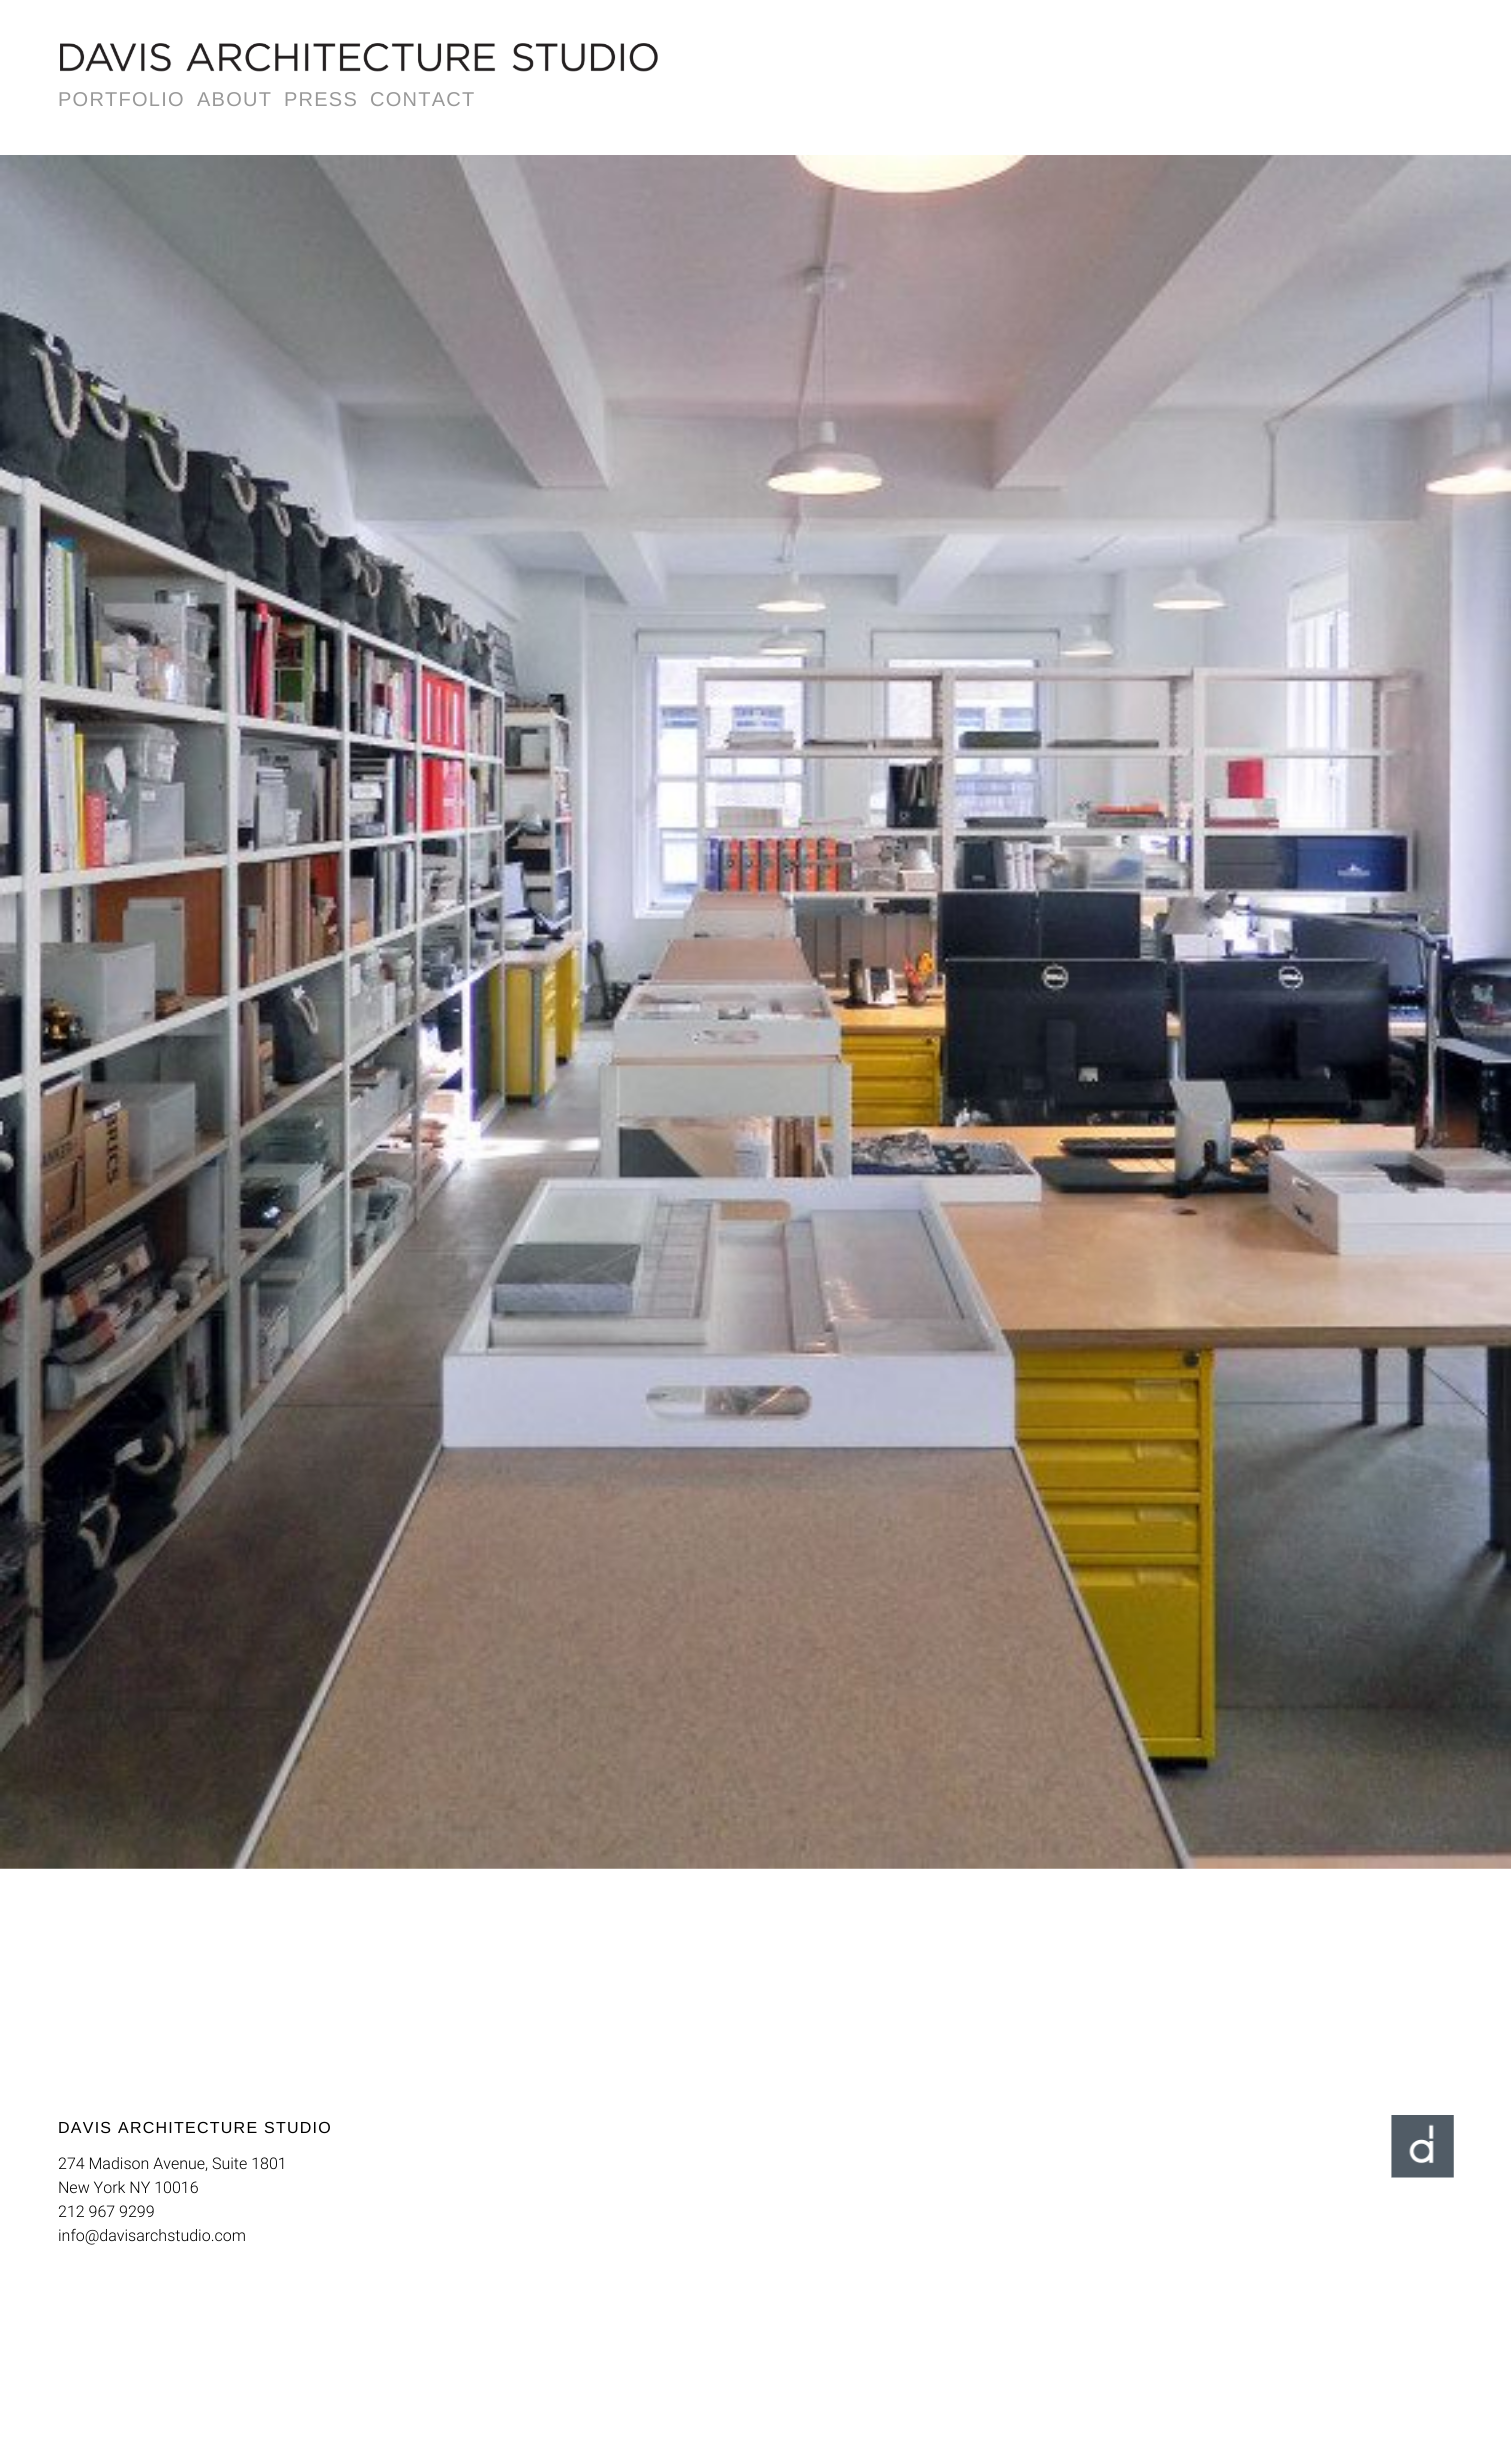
import math
import cairo

surface = cairo.ImageSurface(cairo.Format.RGB24, 1511, 2457)
ctx = cairo.Context(surface)
options = cairo.FontOptions()
options.set_hint_metrics(cairo.HintMetrics.OFF)
options.set_hint_style(cairo.HintStyle.NONE)
ctx.set_font_options(options)
ctx.set_miter_limit(4)


def ink(r, g, b):
    ctx.set_source_rgb(r / 255, g / 255, b / 255)


def write(x, y, s, family, size, color, bold=False, italic=False):
    ctx.select_font_face(family, cairo.FontSlant.ITALIC if italic else cairo.FontSlant.NORMAL, cairo.FontWeight.BOLD if bold else cairo.FontWeight.NORMAL)
    ctx.set_font_size(size)
    ink(*color)
    ctx.move_to(x, y)
    ctx.show_text(s)


def write_spaced(x, y, s, letter, word):
    ctx.move_to(x, y)
    for ch in s:
        ctx.show_text(ch)
        ctx.rel_move_to(letter + word * (ch == ' '), 0)


def paste(path, x, y, w, h):
    ctx.save()
    ctx.set_source_surface(cairo.ImageSurface.create_from_png(path), x, y)
    ctx.rectangle(x, y, w, h)
    ctx.fill()
    ctx.restore()


s1 = dict(family="Roboto Light", size=16, color=(0, 0, 0))

ink(255, 255, 255)
ctx.paint()
paste("pic1.png", 60, 43, 598, 29)
ctx.select_font_face("Arimo")
ctx.set_font_size(20)
ink(153, 153, 153)
write_spaced(58, 106, "PORTFOLIO", 1.25, 0)
write_spaced(197, 106, "ABOUT", 1.25, 0)
write_spaced(284, 106, "PRESS", 1.25, 0)
write_spaced(370, 106, "CONTACT", 1.25, 0)
paste("pic2.png", 0, 155, 1511, 1714)
paste("pic3.png", 1391, 2115, 63, 63)
ctx.set_font_size(16)
ink(0, 0, 0)
write_spaced(58, 2133, "DAVIS ARCHITECTURE STUDIO", 1.25, 0)
write(58, 2169, "274 Madison Avenue, Suite 1801", **s1)
write(58, 2193, "New York NY 10016", **s1)
write(58, 2217, "212 967 9299", **s1)
write(58, 2241, "info@davisarchstudio.com", **s1)
paste("pic4.png", 1391, 2115, 1, 63)
surface.write_to_png("screenshot.png")
